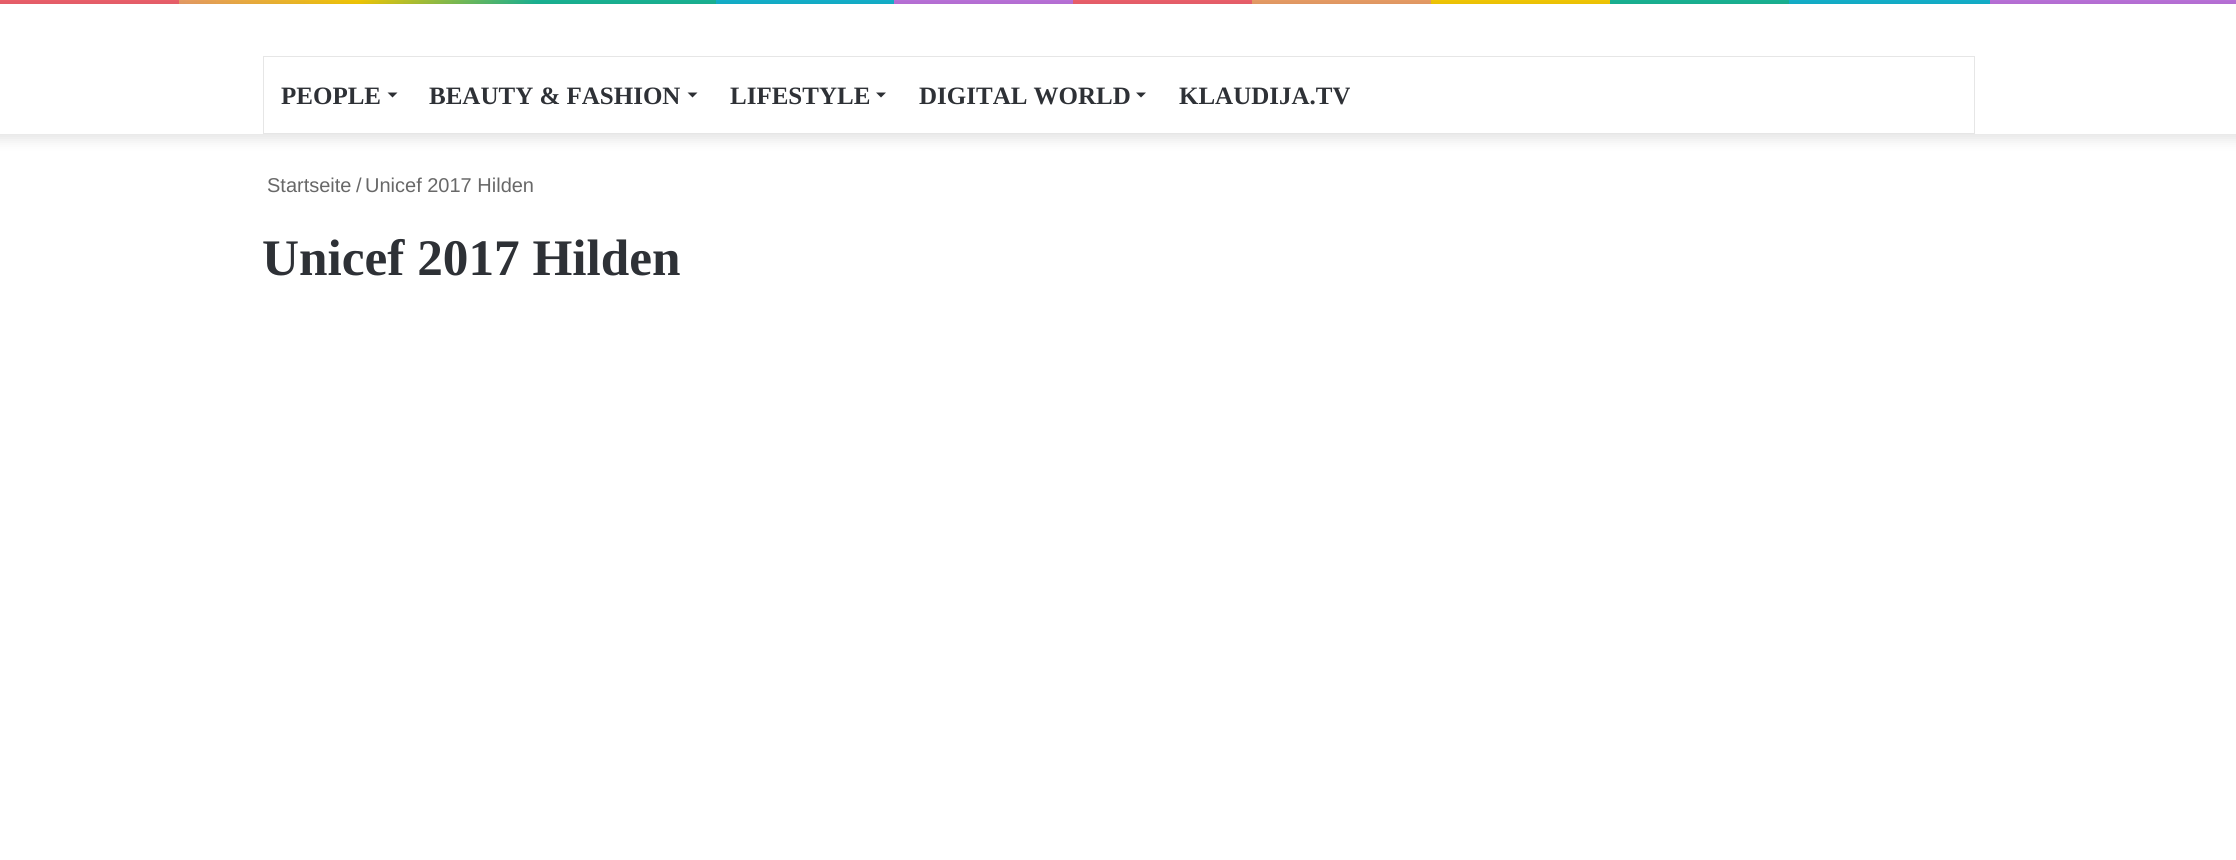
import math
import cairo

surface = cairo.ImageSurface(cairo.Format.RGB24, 2236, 860)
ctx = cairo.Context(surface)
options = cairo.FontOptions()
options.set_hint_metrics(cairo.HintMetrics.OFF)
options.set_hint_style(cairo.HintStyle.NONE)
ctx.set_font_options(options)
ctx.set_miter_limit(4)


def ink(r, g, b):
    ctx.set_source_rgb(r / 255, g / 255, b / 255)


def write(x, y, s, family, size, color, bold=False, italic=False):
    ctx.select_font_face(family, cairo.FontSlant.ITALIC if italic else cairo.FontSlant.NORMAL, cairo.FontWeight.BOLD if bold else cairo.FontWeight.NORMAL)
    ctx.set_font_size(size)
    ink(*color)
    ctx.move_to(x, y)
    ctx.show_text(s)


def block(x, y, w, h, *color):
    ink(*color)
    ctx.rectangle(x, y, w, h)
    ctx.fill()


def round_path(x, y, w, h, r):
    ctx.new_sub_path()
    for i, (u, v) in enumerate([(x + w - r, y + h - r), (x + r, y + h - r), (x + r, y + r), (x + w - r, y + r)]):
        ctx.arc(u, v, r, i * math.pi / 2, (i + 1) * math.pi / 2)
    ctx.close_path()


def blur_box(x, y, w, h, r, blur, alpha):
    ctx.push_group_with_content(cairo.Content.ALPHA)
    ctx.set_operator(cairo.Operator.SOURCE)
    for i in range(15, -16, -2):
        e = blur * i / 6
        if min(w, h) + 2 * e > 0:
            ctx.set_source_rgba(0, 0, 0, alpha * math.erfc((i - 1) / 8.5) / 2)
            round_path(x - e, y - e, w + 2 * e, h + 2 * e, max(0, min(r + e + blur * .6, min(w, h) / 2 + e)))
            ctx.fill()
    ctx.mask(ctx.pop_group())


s1 = dict(family="Liberation Serif", size=25, color=(46, 49, 54), bold=True)
s2 = dict(family="Liberation Sans", size=20, color=(104, 104, 104))
s3 = dict(family="Liberation Serif", size=51.25, color=(46, 49, 54), bold=True)

ink(255, 255, 255)
ctx.paint()
gradient = cairo.LinearGradient(0, 1.9, 2236, 1.9)
gradient.add_color_stop_rgba(0, 0.969, 0.396, 0.439, 1)
gradient.add_color_stop_rgba(0.08, 0.969, 0.396, 0.439, 1)
gradient.add_color_stop_rgba(0.08, 0.953, 0.643, 0.42, 1)
gradient.add_color_stop_rgba(0.16, 1, 0.824, 0.02, 1)
gradient.add_color_stop_rgba(0.24, 0.106, 0.737, 0.608, 1)
gradient.add_color_stop_rgba(0.32, 0.106, 0.737, 0.608, 1)
gradient.add_color_stop_rgba(0.32, 0.078, 0.725, 0.835, 1)
gradient.add_color_stop_rgba(0.4, 0.078, 0.725, 0.835, 1)
gradient.add_color_stop_rgba(0.4, 0.765, 0.467, 0.894, 1)
gradient.add_color_stop_rgba(0.48, 0.765, 0.467, 0.894, 1)
gradient.add_color_stop_rgba(0.48, 0.969, 0.396, 0.439, 1)
gradient.add_color_stop_rgba(0.56, 0.969, 0.396, 0.439, 1)
gradient.add_color_stop_rgba(0.56, 0.953, 0.643, 0.42, 1)
gradient.add_color_stop_rgba(0.64, 0.953, 0.643, 0.42, 1)
gradient.add_color_stop_rgba(0.64, 1, 0.824, 0.02, 1)
gradient.add_color_stop_rgba(0.72, 1, 0.824, 0.02, 1)
gradient.add_color_stop_rgba(0.72, 0.106, 0.737, 0.608, 1)
gradient.add_color_stop_rgba(0.8, 0.106, 0.737, 0.608, 1)
gradient.add_color_stop_rgba(0.8, 0.078, 0.725, 0.835, 1)
gradient.add_color_stop_rgba(0.89, 0.078, 0.725, 0.835, 1)
gradient.add_color_stop_rgba(0.89, 0.765, 0.467, 0.894, 1)
gradient.add_color_stop_rgba(1, 0.765, 0.467, 0.894, 1)
ctx.set_source(gradient)
ctx.rectangle(0, 0, 2236, 4)
ctx.fill()
ink(0, 0, 0)
blur_box(-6, -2, 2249, 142, 0, 6, 0.1)
block(0, 4, 2236, 130, 255, 255, 255)
ctx.rectangle(263.5, 56.5, 1711, 77)
ink(230, 230, 230)
ctx.set_line_width(1)
ctx.stroke()
write(281, 104, "PEOPLE", **s1)
ink(44, 47, 52)
ctx.new_path()
ctx.move_to(387.5, 92.5)
ctx.line_to(397.5, 92.5)
ctx.line_to(392.5, 97.5)
ctx.close_path()
ctx.fill()
write(429, 104, "BEAUTY & FASHION", **s1)
ink(44, 47, 52)
ctx.new_path()
ctx.move_to(687.5, 92.5)
ctx.line_to(697.5, 92.5)
ctx.line_to(692.5, 97.5)
ctx.close_path()
ctx.fill()
write(730, 104, "LIFESTYLE", **s1)
ink(44, 47, 52)
ctx.new_path()
ctx.move_to(876, 92.5)
ctx.line_to(886, 92.5)
ctx.line_to(881, 97.5)
ctx.close_path()
ctx.fill()
write(919, 104, "DIGITAL WORLD", **s1)
ink(44, 47, 52)
ctx.new_path()
ctx.move_to(1136, 92.5)
ctx.line_to(1146, 92.5)
ctx.line_to(1141, 97.5)
ctx.close_path()
ctx.fill()
write(1179, 104, "KLAUDIJA.TV", **s1)
write(267, 192, "Startseite", **s2)
write(356, 192, "/", **s2)
write(365, 192, "Unicef 2017 Hilden", **s2)
write(262, 275, "Unicef 2017 Hilden", **s3)
surface.write_to_png("screenshot.png")
